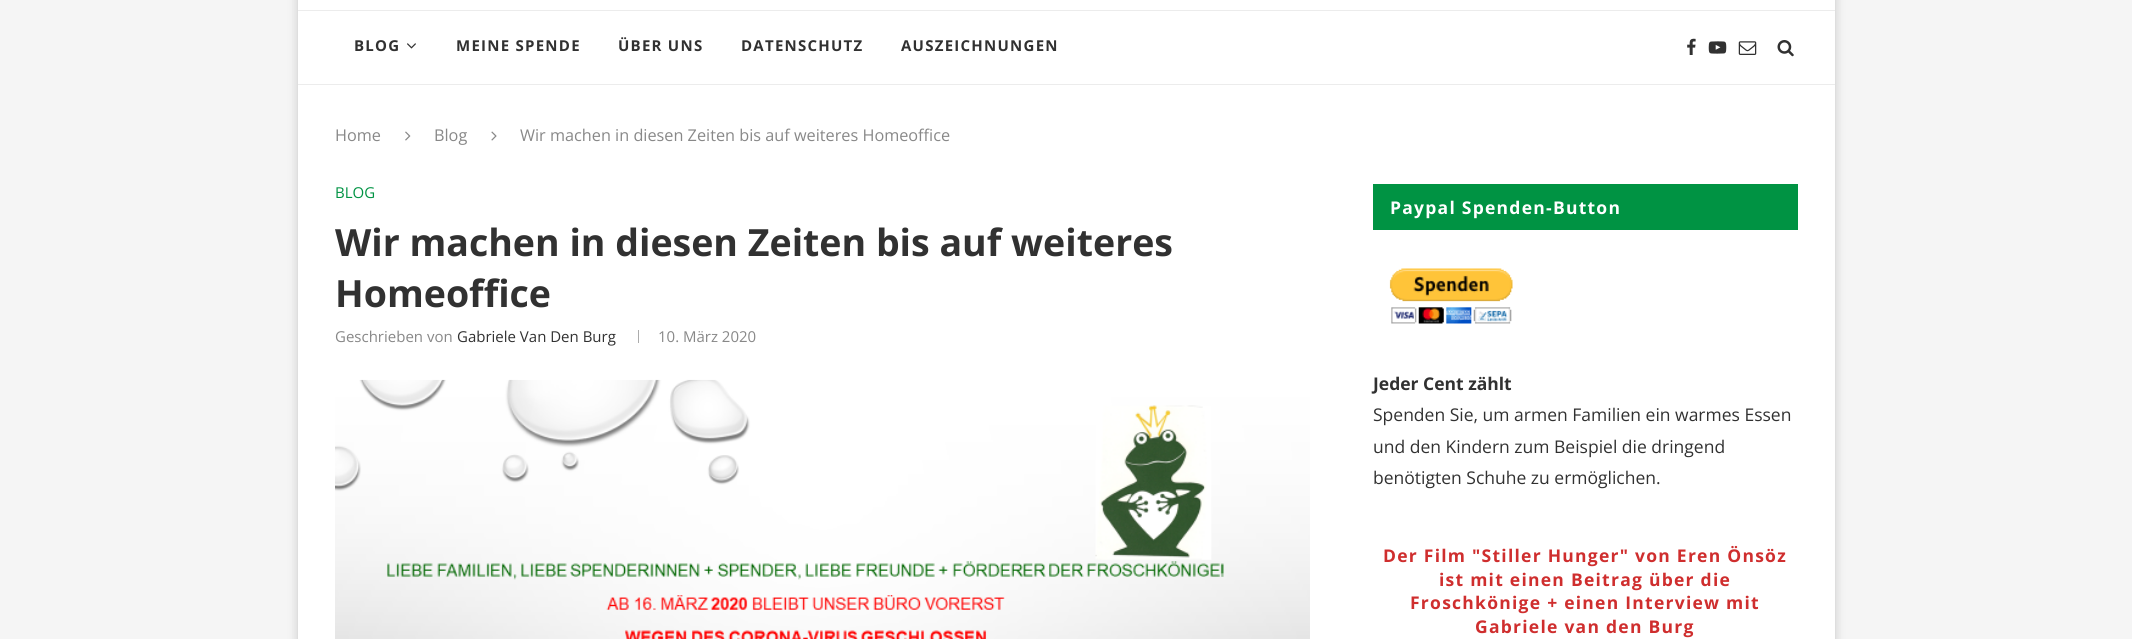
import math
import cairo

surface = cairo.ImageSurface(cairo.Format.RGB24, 2132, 639)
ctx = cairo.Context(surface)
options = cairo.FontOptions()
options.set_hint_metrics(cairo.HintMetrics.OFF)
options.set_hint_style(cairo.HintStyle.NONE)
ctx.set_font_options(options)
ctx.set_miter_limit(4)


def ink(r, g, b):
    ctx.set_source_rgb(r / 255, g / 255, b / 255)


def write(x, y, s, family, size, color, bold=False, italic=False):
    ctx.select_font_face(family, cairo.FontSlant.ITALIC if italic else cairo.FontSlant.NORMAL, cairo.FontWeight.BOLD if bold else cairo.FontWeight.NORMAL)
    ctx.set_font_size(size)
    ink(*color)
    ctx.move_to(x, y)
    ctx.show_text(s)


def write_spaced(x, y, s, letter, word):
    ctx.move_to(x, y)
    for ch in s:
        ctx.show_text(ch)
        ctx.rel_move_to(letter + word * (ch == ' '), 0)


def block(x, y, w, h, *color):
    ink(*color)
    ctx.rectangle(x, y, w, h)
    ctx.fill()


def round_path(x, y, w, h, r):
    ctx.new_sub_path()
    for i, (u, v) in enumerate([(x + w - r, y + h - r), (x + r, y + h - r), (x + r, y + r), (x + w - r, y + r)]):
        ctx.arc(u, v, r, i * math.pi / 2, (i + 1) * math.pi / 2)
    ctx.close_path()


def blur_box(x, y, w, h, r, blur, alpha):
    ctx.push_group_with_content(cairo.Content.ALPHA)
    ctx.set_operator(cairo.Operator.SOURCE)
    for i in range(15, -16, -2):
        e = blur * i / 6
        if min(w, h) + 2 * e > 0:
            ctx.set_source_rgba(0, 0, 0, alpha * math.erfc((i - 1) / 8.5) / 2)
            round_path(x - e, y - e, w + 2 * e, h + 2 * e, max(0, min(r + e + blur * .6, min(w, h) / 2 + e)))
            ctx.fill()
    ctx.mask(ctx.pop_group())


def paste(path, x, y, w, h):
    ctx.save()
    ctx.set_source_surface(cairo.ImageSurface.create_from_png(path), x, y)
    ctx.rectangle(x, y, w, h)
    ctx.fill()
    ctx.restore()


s1 = dict(family="Open Sans", size=16.25, color=(136, 136, 136))
s2 = dict(family="Open Sans", size=15, color=(0, 147, 67))
s3 = dict(family="Open Sans", size=37.5, color=(49, 49, 49), bold=True)
s4 = dict(family="Open Sans", size=15, color=(136, 136, 136))
s5 = dict(family="Open Sans", size=15, color=(49, 49, 49))
s6 = dict(family="Open Sans", size=17.5, color=(49, 49, 49), bold=True)
s7 = dict(family="Open Sans", size=17.5, color=(49, 49, 49))

ink(245, 245, 245)
ctx.paint()
ink(0, 0, 0)
blur_box(298, -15, 1537, 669, 0, 5, 0.2)
block(298, 0, 1537, 639, 255, 255, 255)
block(298, 10, 1537, 1, 236, 236, 236)
block(298, 84, 1537, 1, 236, 236, 236)
ctx.select_font_face("Open Sans", cairo.FontSlant.NORMAL, cairo.FontWeight.BOLD)
ctx.set_font_size(15)
ink(49, 49, 49)
write_spaced(354, 51, "BLOG", 1.25, 0)
paste("pic1.png", 407, 43, 9, 6)
write_spaced(456, 51, "MEINE SPENDE", 1.25, 0)
write_spaced(618, 51, "ÜBER UNS", 1.25, 0)
write_spaced(741, 51, "DATENSCHUTZ", 1.25, 0)
write_spaced(901, 51, "AUSZEICHNUNGEN", 1.25, 0)
paste("pic2.png", 1687, 38, 9, 17)
paste("pic3.png", 1708, 41, 19, 13)
paste("pic4.png", 1738, 41, 19, 14)
paste("pic5.png", 1777, 40, 17, 17)
write(335, 141, "Home", **s1)
paste("pic6.png", 405, 131, 6, 10)
write(434, 141, "Blog", **s1)
paste("pic7.png", 491, 131, 6, 10)
write(520, 141, "Wir machen in diesen Zeiten bis auf weiteres Homeoffice", **s1)
write(335, 198, "BLOG", **s2)
write(335, 256, "Wir machen in diesen Zeiten bis auf weiteres", **s3)
write(335, 307, "Homeoffice", **s3)
write(335, 342, "Geschrieben von", **s4)
write(457, 342, "Gabriele Van Den Burg", **s5)
block(638, 330, 1, 13, 172, 172, 172)
write(658, 342, "10. März 2020", **s4)
paste("pic8.png", 335, 379, 975, 260)
block(1373, 184, 425, 46, 0, 147, 67)
ctx.select_font_face("Open Sans", cairo.FontSlant.NORMAL, cairo.FontWeight.BOLD)
ctx.set_font_size(17.5)
ink(255, 255, 255)
write_spaced(1390, 214, "Paypal Spenden-Button", 1.25, 0)
paste("pic9.png", 1389, 268, 124, 56)
write(1373, 390, "Jeder Cent zählt", **s6)
write(1373, 421, "Spenden Sie, um armen Familien ein warmes Essen", **s7)
write(1373, 453, "und den Kindern zum Beispiel die dringend", **s7)
write(1373, 484, "benötigten Schuhe zu ermöglichen.", **s7)
ctx.select_font_face("Open Sans", cairo.FontSlant.NORMAL, cairo.FontWeight.BOLD)
ink(207, 46, 46)
write_spaced(1383, 562, "Der Film \"Stiller Hunger\" von Eren Önsöz", 1.25, 0)
write_spaced(1439, 586, "ist mit einen Beitrag über die", 1.25, 0)
write_spaced(1410, 609, "Froschkönige + einen Interview mit", 1.25, 0)
write_spaced(1475, 633, "Gabriele van den Burg", 1.25, 0)
surface.write_to_png("screenshot.png")
